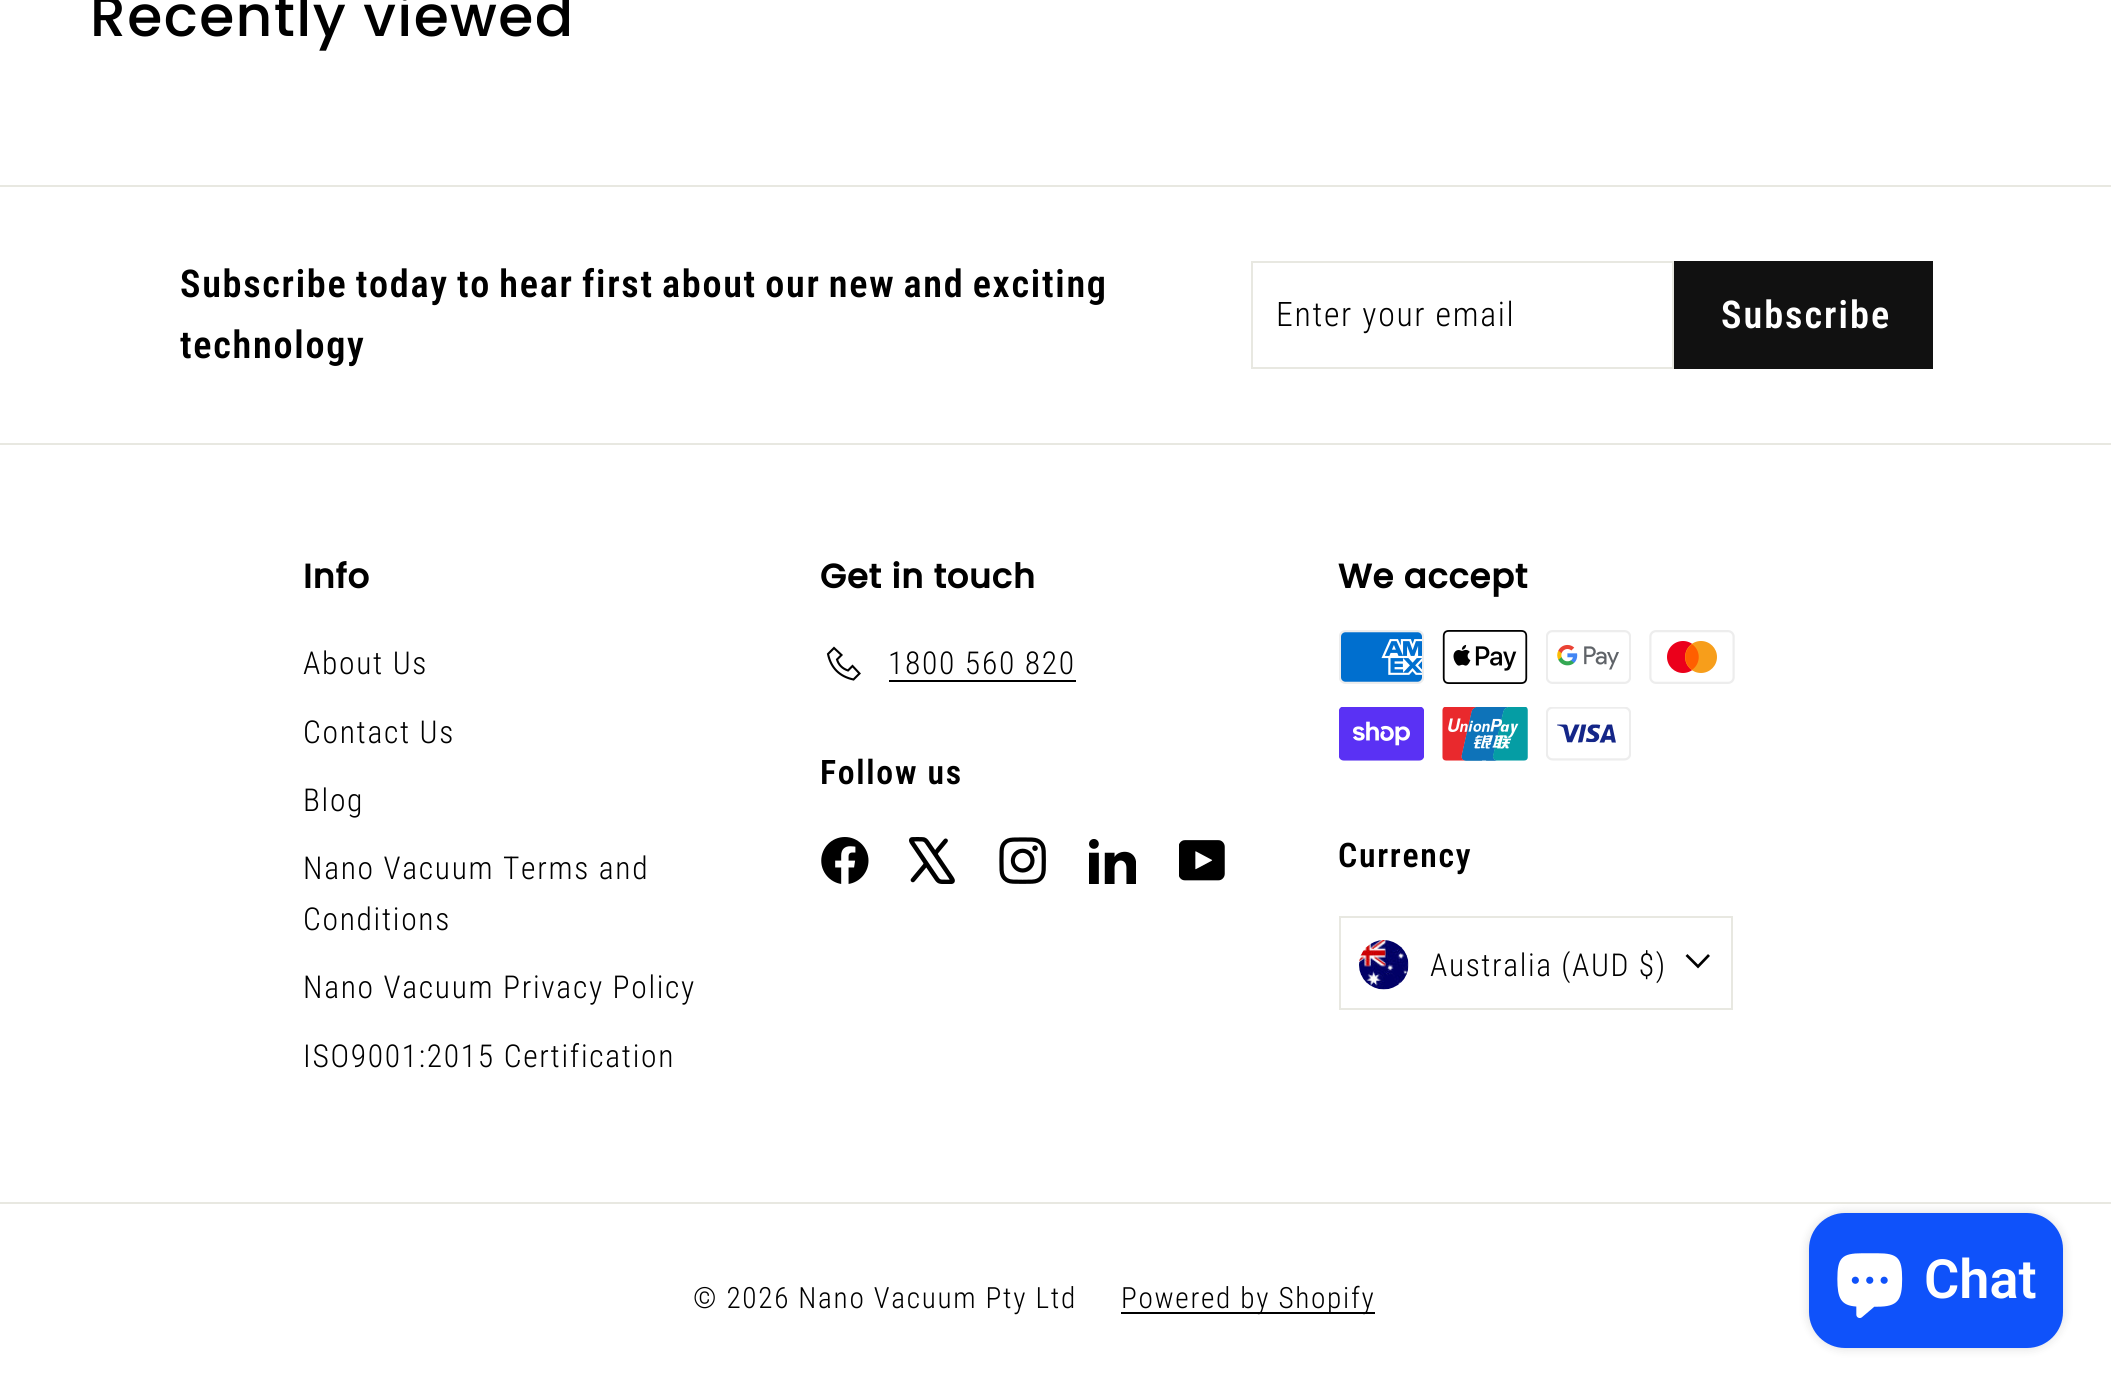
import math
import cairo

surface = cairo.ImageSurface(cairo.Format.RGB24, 2111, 1393)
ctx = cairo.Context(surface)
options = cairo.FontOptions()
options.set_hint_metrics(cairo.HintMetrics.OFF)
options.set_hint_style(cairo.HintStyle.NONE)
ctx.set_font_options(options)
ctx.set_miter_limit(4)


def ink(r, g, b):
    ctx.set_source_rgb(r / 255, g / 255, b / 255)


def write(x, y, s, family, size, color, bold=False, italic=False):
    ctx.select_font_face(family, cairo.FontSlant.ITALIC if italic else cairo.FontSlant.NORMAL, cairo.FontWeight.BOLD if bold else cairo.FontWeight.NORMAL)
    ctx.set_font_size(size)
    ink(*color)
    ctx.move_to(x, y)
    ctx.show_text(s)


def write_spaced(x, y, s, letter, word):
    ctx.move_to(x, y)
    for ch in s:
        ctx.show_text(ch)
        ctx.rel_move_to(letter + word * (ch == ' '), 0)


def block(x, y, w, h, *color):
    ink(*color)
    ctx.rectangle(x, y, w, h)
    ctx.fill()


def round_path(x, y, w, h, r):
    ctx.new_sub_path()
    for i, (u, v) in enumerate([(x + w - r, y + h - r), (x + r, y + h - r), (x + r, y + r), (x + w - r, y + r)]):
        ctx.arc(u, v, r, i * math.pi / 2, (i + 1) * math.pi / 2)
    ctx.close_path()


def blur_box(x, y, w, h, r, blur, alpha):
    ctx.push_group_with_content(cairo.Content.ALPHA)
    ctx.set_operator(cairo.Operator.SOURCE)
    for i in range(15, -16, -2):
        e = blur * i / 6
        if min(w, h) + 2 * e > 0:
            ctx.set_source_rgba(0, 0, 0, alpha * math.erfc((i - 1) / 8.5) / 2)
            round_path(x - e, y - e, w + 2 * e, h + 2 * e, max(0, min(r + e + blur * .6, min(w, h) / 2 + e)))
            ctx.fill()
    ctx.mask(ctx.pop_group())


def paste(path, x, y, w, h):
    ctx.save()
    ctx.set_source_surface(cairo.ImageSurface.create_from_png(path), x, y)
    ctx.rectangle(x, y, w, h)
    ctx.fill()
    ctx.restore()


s1 = dict(family="Roboto SemiBold", size=54, color=(255, 255, 255))

ink(255, 255, 255)
ctx.paint()
ctx.select_font_face("Poppins Medium")
ctx.set_font_size(56.75)
ink(0, 0, 0)
write_spaced(90, 36, "Recently viewed", 1.4, 0)
block(0, 185, 2111, 2, 232, 232, 225)
ctx.select_font_face("Roboto Condensed SemiBold")
ctx.set_font_size(38.25)
ink(0, 0, 0)
write_spaced(180, 297, "Subscribe today to hear first about our new and exciting", 1.7, -2.25)
write_spaced(180, 358, "technology", 1.7, 0)
ctx.rectangle(1252, 262, 421, 106)
ink(232, 232, 225)
ctx.stroke()
ctx.select_font_face("Roboto Condensed Light")
ctx.set_font_size(33.75)
ink(0, 0, 0)
write_spaced(1276, 326, "Enter your email", 1.7, 0)
block(1674, 261, 259, 108, 17, 17, 17)
ctx.select_font_face("Roboto Condensed SemiBold")
ctx.set_font_size(38.25)
ink(255, 255, 255)
write_spaced(1721, 328, "Subscribe", 2, 0)
block(0, 443, 2111, 2, 232, 232, 225)
ctx.select_font_face("Poppins", cairo.FontSlant.NORMAL, cairo.FontWeight.BOLD)
ctx.set_font_size(33.75)
ink(0, 0, 0)
write_spaced(303, 588, "Info", 0.8, 0)
ctx.select_font_face("Roboto Condensed Light")
ctx.set_font_size(31.5)
write_spaced(303, 674, "About Us", 1.7, 0)
write_spaced(303, 743, "Contact Us", 1.7, 0)
write_spaced(303, 811, "Blog", 1.7, 0)
write_spaced(303, 879, "Nano Vacuum Terms and", 1.7, 0)
write_spaced(303, 930, "Conditions", 1.7, 0)
write_spaced(303, 998, "Nano Vacuum Privacy Policy", 1.7, 0)
write_spaced(303, 1067, "ISO9001:2015 Certification", 1.7, 0)
ctx.select_font_face("Poppins", cairo.FontSlant.NORMAL, cairo.FontWeight.BOLD)
ctx.set_font_size(33.75)
write_spaced(820, 588, "Get in touch", 0.8, 0)
ctx.new_path()
ctx.move_to(834, 648)
ctx.line_to(841.5, 655)
ctx.line_to(837, 659.5)
ctx.curve_to(838.5, 664.5, 842, 668.5, 848, 670.5)
ctx.line_to(852.5, 666)
ctx.line_to(859.5, 673.5)
ctx.line_to(853.5, 679.5)
ctx.curve_to(839.5, 676.5, 831, 668, 828, 654)
ctx.close_path()
ctx.set_line_width(2.1)
ctx.stroke()
ctx.select_font_face("Roboto Condensed Light")
ctx.set_font_size(31.5)
write_spaced(888, 674, "1800 560 820", 1.7, 0)
block(889, 680, 187, 2, 0, 0, 0)
ctx.select_font_face("Roboto Condensed SemiBold")
ctx.set_font_size(33.75)
write_spaced(820, 784, "Follow us", 1.7, 0)
paste("pic1.png", 821, 837, 48, 47)
paste("pic2.png", 909, 837, 46, 47)
paste("pic3.png", 999, 837, 47, 47)
paste("pic4.png", 1089, 839, 47, 45)
paste("pic5.png", 1179, 840, 46, 41)
ctx.select_font_face("Poppins", cairo.FontSlant.NORMAL, cairo.FontWeight.BOLD)
write_spaced(1338, 588, "We accept", 0.8, 0)
paste("pic6.png", 1339, 630, 85, 54)
paste("pic7.png", 1442, 630, 86, 54)
paste("pic8.png", 1546, 630, 85, 54)
paste("pic9.png", 1649, 630, 86, 54)
paste("pic10.png", 1339, 707, 85, 54)
paste("pic11.png", 1442, 707, 86, 54)
paste("pic12.png", 1546, 707, 85, 54)
ctx.select_font_face("Roboto Condensed SemiBold")
write_spaced(1338, 867, "Currency", 1.7, 0)
ctx.rectangle(1340, 917, 392, 92)
ink(232, 232, 225)
ctx.set_line_width(2)
ctx.stroke()
paste("pic13.png", 1359, 940, 50, 50)
ctx.select_font_face("Roboto Condensed Light")
ctx.set_font_size(31.5)
ink(0, 0, 0)
write_spaced(1430, 976, "Australia (AUD $)", 1.6, 0)
ctx.new_path()
ctx.move_to(1686.5, 955)
ctx.line_to(1698, 966.5)
ctx.line_to(1709, 955)
ctx.set_line_width(2.7)
ctx.stroke()
block(0, 1202, 2111, 2, 232, 232, 225)
ctx.set_font_size(29.25)
ink(0, 0, 0)
write_spaced(693, 1308, "© 2026 Nano Vacuum Pty Ltd", 1.7, 0)
block(1121, 1312, 254, 2, 0, 0, 0)
write_spaced(1121, 1308, "Powered by Shopify", 1.7, 0)
ink(0, 0, 0)
blur_box(1809, 1213, 254, 135, 36, 5.5, 0.15)
ink(15, 82, 250)
round_path(1809, 1213, 254, 135, 36)
ctx.fill()
paste("pic14.png", 1837, 1253, 66, 65)
write(1924, 1298, "Chat", **s1)
surface.write_to_png("screenshot.png")
